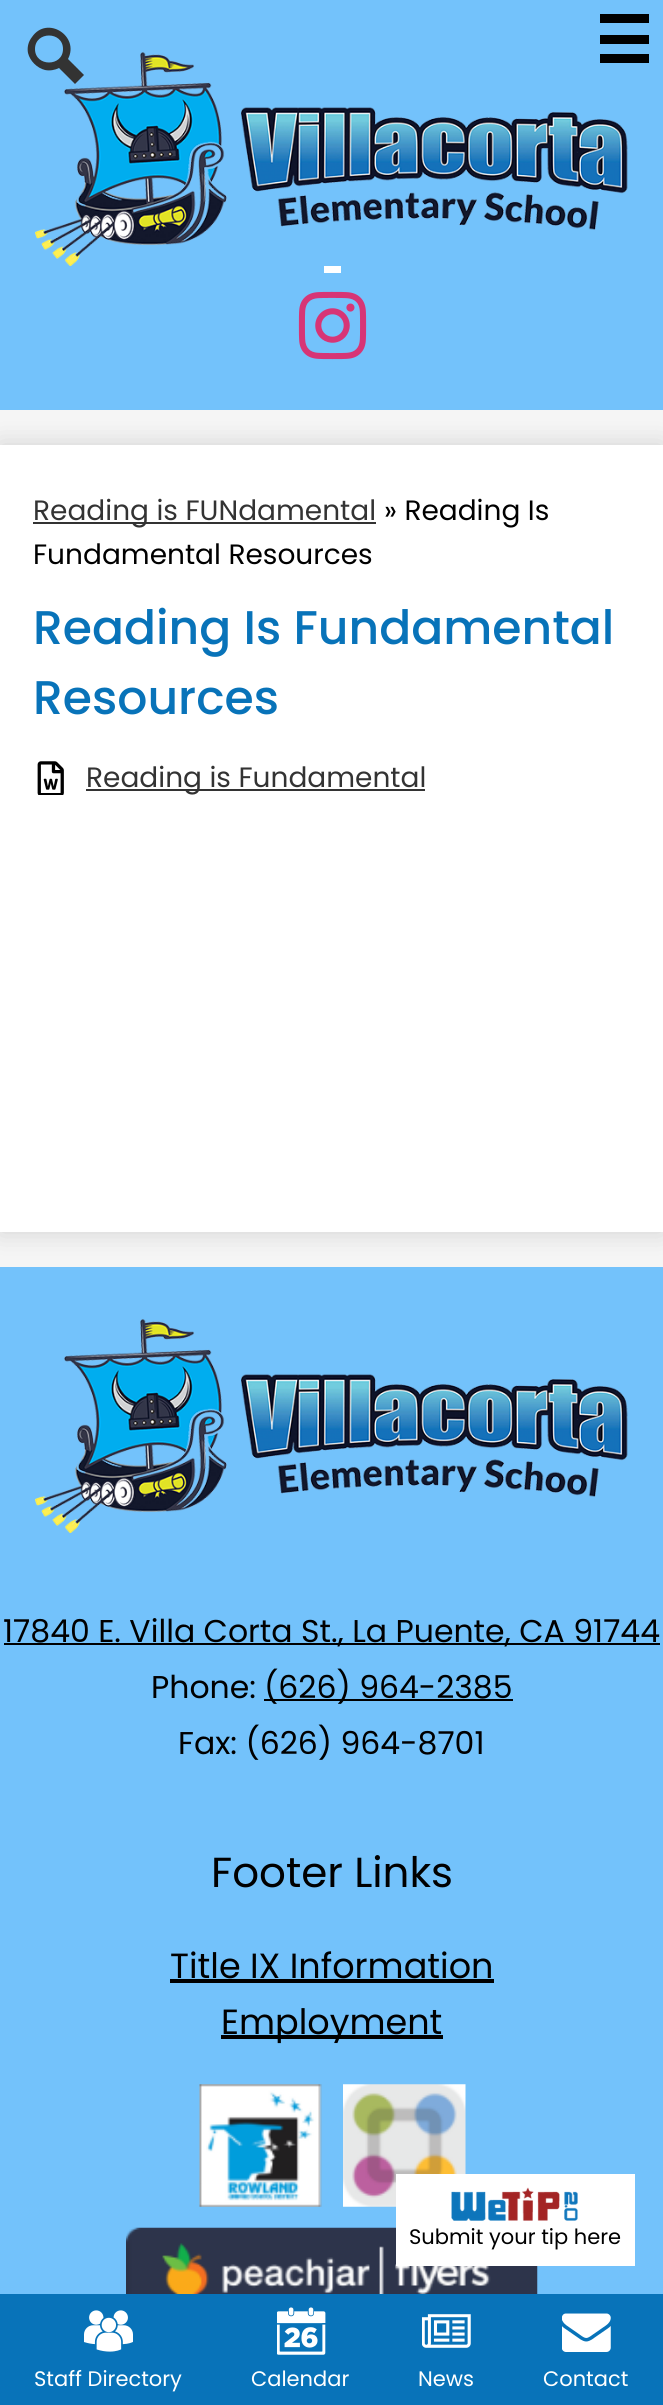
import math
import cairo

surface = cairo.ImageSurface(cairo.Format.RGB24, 663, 2405)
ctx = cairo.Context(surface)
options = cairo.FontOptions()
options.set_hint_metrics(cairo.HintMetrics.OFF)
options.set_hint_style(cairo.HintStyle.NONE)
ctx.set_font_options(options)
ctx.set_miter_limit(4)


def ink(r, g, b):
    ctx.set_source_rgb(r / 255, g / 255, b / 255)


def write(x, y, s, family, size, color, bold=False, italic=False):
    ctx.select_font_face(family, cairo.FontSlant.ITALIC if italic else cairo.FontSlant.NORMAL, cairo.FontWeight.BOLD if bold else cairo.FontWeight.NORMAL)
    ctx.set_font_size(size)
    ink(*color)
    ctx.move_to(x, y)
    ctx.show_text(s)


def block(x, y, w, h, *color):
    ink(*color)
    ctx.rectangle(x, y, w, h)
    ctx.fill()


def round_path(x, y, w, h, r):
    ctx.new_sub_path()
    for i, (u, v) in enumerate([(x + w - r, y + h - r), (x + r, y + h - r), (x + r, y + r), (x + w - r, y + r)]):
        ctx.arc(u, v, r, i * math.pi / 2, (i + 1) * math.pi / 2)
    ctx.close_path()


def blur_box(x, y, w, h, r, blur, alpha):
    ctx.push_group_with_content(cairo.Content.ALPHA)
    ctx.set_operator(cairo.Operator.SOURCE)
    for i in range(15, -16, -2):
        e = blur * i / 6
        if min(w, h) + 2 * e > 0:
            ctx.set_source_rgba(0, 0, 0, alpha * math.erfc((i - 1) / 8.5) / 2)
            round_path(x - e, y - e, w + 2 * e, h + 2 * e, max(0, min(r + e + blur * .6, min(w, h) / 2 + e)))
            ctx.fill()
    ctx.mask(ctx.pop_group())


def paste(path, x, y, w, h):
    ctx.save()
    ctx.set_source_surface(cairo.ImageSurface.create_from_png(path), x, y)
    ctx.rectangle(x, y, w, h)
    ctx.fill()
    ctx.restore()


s1 = dict(family="Poppins", size=28, color=(51, 51, 51))
s2 = dict(family="Poppins", size=28, color=(0, 0, 0))
s3 = dict(family="Poppins Medium", size=47.25, color=(8, 115, 185))
s4 = dict(family="Poppins", size=31.5, color=(0, 0, 0))
s5 = dict(family="Poppins", size=42, color=(0, 0, 0))
s6 = dict(family="Poppins", size=35, color=(0, 0, 0))
s7 = dict(family="Poppins", size=21, color=(0, 0, 0))
s8 = dict(family="Poppins", size=21, color=(255, 255, 255))

ink(245, 245, 245)
ctx.paint()
block(0, 1267, 663, 1027, 115, 194, 251)
ink(0, 0, 0)
blur_box(0, 445, 663, 787, 0, 13, 0.15)
block(0, 445, 663, 787, 255, 255, 255)
block(33, 522, 343, 2, 51, 51, 51)
write(33, 520, "Reading is FUNdamental", **s1)
write(384, 520, "» Reading Is", **s2)
write(33, 564, "Fundamental Resources", **s2)
write(33, 644, "Reading Is Fundamental", **s3)
write(33, 714, "Resources", **s3)
paste("pic1.png", 37, 761, 27, 34)
block(86, 789, 339, 2, 51, 51, 51)
write(86, 787, "Reading is Fundamental", **s1)
paste("pic2.png", 35, 1319, 593, 214)
block(4, 1643, 656, 2, 0, 0, 0)
write(3, 1642, "17840 E. Villa Corta St., La Puente, CA 91744", **s4)
write(151, 1698, "Phone:", **s4)
block(264, 1699, 249, 2, 0, 0, 0)
write(264, 1698, "(626) 964-2385", **s4)
write(178, 1754, "Fax: (626) 964-8701", **s4)
write(211, 1887, "Footer Links", **s5)
write(170, 1978, "Title IX Information", **s6)
block(170, 1979, 324, 4, 0, 0, 0)
block(221, 2035, 222, 4, 0, 0, 0)
write(221, 2034, "Employment", **s6)
paste("pic3.png", 199, 2084, 123, 123)
paste("pic4.png", 343, 2084, 123, 123)
paste("pic5.png", 126, 2227, 412, 67)
block(0, 0, 663, 410, 115, 194, 251)
block(600, 14, 49, 9, 0, 0, 0)
block(600, 35, 49, 9, 0, 0, 0)
paste("pic6.png", 35, 52, 593, 214)
block(600, 54, 49, 9, 0, 0, 0)
ink(51, 51, 51)
ctx.new_path()
ctx.move_to(84, 75)
ctx.line_to(68, 59)
ctx.curve_to(80, 36, 47, 15, 32, 37)
ctx.curve_to(28, 42, 27, 48, 28, 53)
ctx.curve_to(30, 61, 37, 68, 45, 70)
ctx.curve_to(50, 71, 55, 70, 59, 68)
ctx.line_to(75, 84)
ctx.close_path()
ctx.move_to(35, 49)
ctx.curve_to(35, 31, 63, 31, 63, 49)
ctx.curve_to(63, 67, 35, 67, 35, 49)
ctx.close_path()
ctx.fill()
block(324, 266, 17, 7, 255, 255, 255)
paste("pic7.png", 298, 291, 69, 69)
block(396, 2174, 239, 92, 255, 255, 255)
paste("pic8.png", 451, 2187, 127, 34)
write(409, 2244, "Submit your tip here", **s7)
block(0, 2294, 663, 111, 8, 115, 185)
paste("pic9.png", 84, 2310, 49, 42)
write(34, 2386, "Staff Directory", **s8)
paste("pic10.png", 277, 2307, 49, 48)
write(251, 2386, "Calendar", **s8)
paste("pic11.png", 422, 2314, 49, 34)
write(418, 2386, "News", **s8)
paste("pic12.png", 562, 2313, 49, 39)
write(543, 2386, "Contact", **s8)
surface.write_to_png("screenshot.png")
